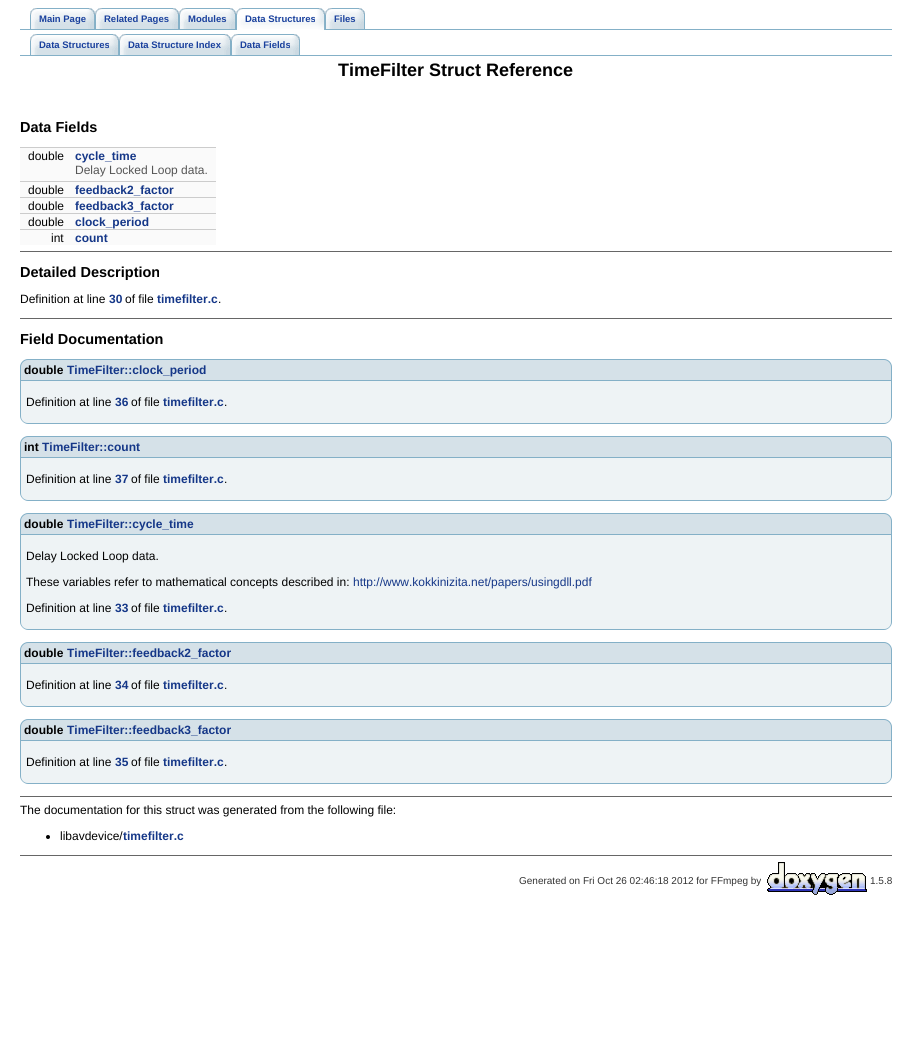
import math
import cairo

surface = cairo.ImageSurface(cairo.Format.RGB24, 912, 1040)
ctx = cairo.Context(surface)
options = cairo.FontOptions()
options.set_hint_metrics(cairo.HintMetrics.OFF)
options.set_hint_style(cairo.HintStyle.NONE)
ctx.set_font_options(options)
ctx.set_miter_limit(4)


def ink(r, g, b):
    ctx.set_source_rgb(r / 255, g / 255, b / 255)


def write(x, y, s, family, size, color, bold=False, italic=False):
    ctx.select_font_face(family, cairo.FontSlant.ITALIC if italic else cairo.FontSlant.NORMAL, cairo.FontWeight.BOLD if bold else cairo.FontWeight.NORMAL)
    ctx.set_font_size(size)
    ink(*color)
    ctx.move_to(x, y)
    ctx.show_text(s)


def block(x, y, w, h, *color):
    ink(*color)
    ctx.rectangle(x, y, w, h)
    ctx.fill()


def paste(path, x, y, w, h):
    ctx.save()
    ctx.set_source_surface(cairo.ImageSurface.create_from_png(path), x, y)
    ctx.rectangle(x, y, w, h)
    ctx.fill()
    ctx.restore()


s1 = dict(family="Liberation Sans", size=9.5, color=(26, 65, 157), bold=True)
s2 = dict(family="Liberation Sans", size=18, color=(0, 0, 0), bold=True)
s3 = dict(family="Liberation Sans", size=14.5, color=(0, 0, 0), bold=True)
s4 = dict(family="Liberation Sans", size=12, color=(0, 0, 0))
s5 = dict(family="Liberation Sans", size=12, color=(21, 55, 136), bold=True)
s6 = dict(family="Liberation Sans", size=12, color=(85, 85, 85))
s7 = dict(family="Liberation Sans", size=12, color=(0, 0, 0), bold=True)
s8 = dict(family="Liberation Sans", size=12, color=(21, 55, 136))
s9 = dict(family="Liberation Sans", size=10, color=(51, 51, 51))

ink(255, 255, 255)
ctx.paint()
block(20, 29, 872, 1, 132, 176, 199)
paste("pic1.png", 39, 8, 56, 21)
paste("pic2.png", 30, 8, 9, 21)
write(39, 22, "Main Page", **s1)
paste("pic3.png", 104, 8, 75, 21)
paste("pic2.png", 95, 8, 9, 21)
write(104, 22, "Related Pages", **s1)
paste("pic4.png", 188, 8, 48, 21)
paste("pic2.png", 179, 8, 9, 21)
write(188, 22, "Modules", **s1)
paste("pic5.png", 243, 8, 82, 22)
paste("pic6.png", 236, 8, 7, 22)
write(245, 22, "Data Structures", **s1)
paste("pic7.png", 334, 8, 31, 21)
paste("pic2.png", 325, 8, 9, 21)
write(334, 22, "Files", **s1)
block(20, 55, 872, 1, 132, 176, 199)
paste("pic8.png", 39, 34, 80, 21)
paste("pic2.png", 30, 34, 9, 21)
write(39, 48, "Data Structures", **s1)
paste("pic9.png", 128, 34, 103, 21)
paste("pic2.png", 119, 34, 9, 21)
write(128, 48, "Data Structure Index", **s1)
paste("pic10.png", 240, 34, 60, 21)
paste("pic2.png", 231, 34, 9, 21)
write(240, 48, "Data Fields", **s1)
write(338, 76, "TimeFilter Struct Reference", **s2)
write(20, 132, "Data Fields", **s3)
block(20, 148, 196, 15, 250, 250, 250)
block(20, 147, 196, 1, 204, 204, 204)
write(28, 160, "double", **s4)
write(75, 160, "cycle_time", **s5)
block(20, 163, 196, 18, 250, 250, 250)
write(75, 174, "Delay Locked Loop data.", **s6)
block(20, 182, 196, 15, 250, 250, 250)
block(20, 181, 196, 1, 204, 204, 204)
write(28, 194, "double", **s4)
write(75, 194, "feedback2_factor", **s5)
block(20, 198, 196, 15, 250, 250, 250)
block(20, 197, 196, 1, 204, 204, 204)
write(28, 210, "double", **s4)
write(75, 210, "feedback3_factor", **s5)
block(20, 214, 196, 15, 250, 250, 250)
block(20, 213, 196, 1, 204, 204, 204)
write(28, 226, "double", **s4)
write(75, 226, "clock_period", **s5)
block(20, 230, 196, 15, 250, 250, 250)
block(20, 229, 196, 1, 204, 204, 204)
write(51, 242, "int", **s4)
write(75, 242, "count", **s5)
block(20, 251, 872, 1, 102, 102, 102)
write(20, 277, "Detailed Description", **s3)
write(20, 303, "Definition at line", **s4)
write(109, 303, "30", **s5)
write(125, 303, "of file", **s4)
write(157, 303, "timefilter.c", **s5)
write(218, 303, ".", **s4)
block(20, 318, 872, 1, 102, 102, 102)
write(20, 344, "Field Documentation", **s3)
ink(213, 225, 232)
ctx.new_path()
ctx.move_to(28, 359.5)
ctx.line_to(884, 359.5)
ctx.curve_to(888, 359.5, 891.5, 363, 891.5, 367)
ctx.line_to(891.5, 380.5)
ctx.line_to(20.5, 380.5)
ctx.line_to(20.5, 367)
ctx.curve_to(20.5, 363, 24, 359.5, 28, 359.5)
ctx.close_path()
ctx.fill_preserve()
ink(132, 176, 199)
ctx.set_line_width(1)
ctx.stroke()
write(24, 374, "double", **s7)
write(67, 374, "TimeFilter::clock_period", **s5)
ink(238, 243, 245)
ctx.new_path()
ctx.move_to(21, 381)
ctx.line_to(891, 381)
ctx.line_to(891, 416)
ctx.curve_to(891, 420, 888, 423, 884, 423)
ctx.line_to(28, 423)
ctx.curve_to(24, 423, 21, 420, 21, 416)
ctx.close_path()
ctx.fill()
ink(132, 176, 199)
ctx.set_fill_rule(cairo.FillRule.EVEN_ODD)
ctx.new_path()
ctx.move_to(20, 381)
ctx.line_to(892, 381)
ctx.line_to(892, 416)
ctx.curve_to(892, 420, 888, 424, 884, 424)
ctx.line_to(28, 424)
ctx.curve_to(24, 424, 20, 420, 20, 416)
ctx.close_path()
ctx.move_to(21, 381)
ctx.line_to(891, 381)
ctx.line_to(891, 416)
ctx.curve_to(891, 420, 888, 423, 884, 423)
ctx.line_to(28, 423)
ctx.curve_to(24, 423, 21, 420, 21, 416)
ctx.close_path()
ctx.fill()
write(26, 406, "Definition at line", **s4)
write(115, 406, "36", **s5)
write(131, 406, "of file", **s4)
write(163, 406, "timefilter.c", **s5)
write(224, 406, ".", **s4)
ink(213, 225, 232)
ctx.new_path()
ctx.move_to(28, 436.5)
ctx.line_to(884, 436.5)
ctx.curve_to(888, 436.5, 891.5, 440, 891.5, 444)
ctx.line_to(891.5, 457.5)
ctx.line_to(20.5, 457.5)
ctx.line_to(20.5, 444)
ctx.curve_to(20.5, 440, 24, 436.5, 28, 436.5)
ctx.close_path()
ctx.fill_preserve()
ink(132, 176, 199)
ctx.stroke()
write(24, 451, "int", **s7)
write(42, 451, "TimeFilter::count", **s5)
ink(238, 243, 245)
ctx.new_path()
ctx.move_to(21, 458)
ctx.line_to(891, 458)
ctx.line_to(891, 493)
ctx.curve_to(891, 497, 888, 500, 884, 500)
ctx.line_to(28, 500)
ctx.curve_to(24, 500, 21, 497, 21, 493)
ctx.close_path()
ctx.fill()
ink(132, 176, 199)
ctx.new_path()
ctx.move_to(20, 458)
ctx.line_to(892, 458)
ctx.line_to(892, 493)
ctx.curve_to(892, 497, 888, 501, 884, 501)
ctx.line_to(28, 501)
ctx.curve_to(24, 501, 20, 497, 20, 493)
ctx.close_path()
ctx.move_to(21, 458)
ctx.line_to(891, 458)
ctx.line_to(891, 493)
ctx.curve_to(891, 497, 888, 500, 884, 500)
ctx.line_to(28, 500)
ctx.curve_to(24, 500, 21, 497, 21, 493)
ctx.close_path()
ctx.fill()
write(26, 483, "Definition at line", **s4)
write(115, 483, "37", **s5)
write(131, 483, "of file", **s4)
write(163, 483, "timefilter.c", **s5)
write(224, 483, ".", **s4)
ink(213, 225, 232)
ctx.new_path()
ctx.move_to(28, 513.5)
ctx.line_to(884, 513.5)
ctx.curve_to(888, 513.5, 891.5, 517, 891.5, 521)
ctx.line_to(891.5, 534.5)
ctx.line_to(20.5, 534.5)
ctx.line_to(20.5, 521)
ctx.curve_to(20.5, 517, 24, 513.5, 28, 513.5)
ctx.close_path()
ctx.fill_preserve()
ink(132, 176, 199)
ctx.stroke()
write(24, 528, "double", **s7)
write(67, 528, "TimeFilter::cycle_time", **s5)
ink(238, 243, 245)
ctx.new_path()
ctx.move_to(21, 535)
ctx.line_to(891, 535)
ctx.line_to(891, 622)
ctx.curve_to(891, 626, 888, 629, 884, 629)
ctx.line_to(28, 629)
ctx.curve_to(24, 629, 21, 626, 21, 622)
ctx.close_path()
ctx.fill()
ink(132, 176, 199)
ctx.new_path()
ctx.move_to(20, 535)
ctx.line_to(892, 535)
ctx.line_to(892, 622)
ctx.curve_to(892, 626, 888, 630, 884, 630)
ctx.line_to(28, 630)
ctx.curve_to(24, 630, 20, 626, 20, 622)
ctx.close_path()
ctx.move_to(21, 535)
ctx.line_to(891, 535)
ctx.line_to(891, 622)
ctx.curve_to(891, 626, 888, 629, 884, 629)
ctx.line_to(28, 629)
ctx.curve_to(24, 629, 21, 626, 21, 622)
ctx.close_path()
ctx.fill()
write(26, 560, "Delay Locked Loop data.", **s4)
write(26, 586, "These variables refer to mathematical concepts described in:", **s4)
write(353, 586, "http://www.kokkinizita.net/papers/usingdll.pdf", **s8)
write(26, 612, "Definition at line", **s4)
write(115, 612, "33", **s5)
write(131, 612, "of file", **s4)
write(163, 612, "timefilter.c", **s5)
write(224, 612, ".", **s4)
ink(213, 225, 232)
ctx.new_path()
ctx.move_to(28, 642.5)
ctx.line_to(884, 642.5)
ctx.curve_to(888, 642.5, 891.5, 646, 891.5, 650)
ctx.line_to(891.5, 663.5)
ctx.line_to(20.5, 663.5)
ctx.line_to(20.5, 650)
ctx.curve_to(20.5, 646, 24, 642.5, 28, 642.5)
ctx.close_path()
ctx.fill_preserve()
ink(132, 176, 199)
ctx.stroke()
write(24, 657, "double", **s7)
write(67, 657, "TimeFilter::feedback2_factor", **s5)
ink(238, 243, 245)
ctx.new_path()
ctx.move_to(21, 664)
ctx.line_to(891, 664)
ctx.line_to(891, 699)
ctx.curve_to(891, 703, 888, 706, 884, 706)
ctx.line_to(28, 706)
ctx.curve_to(24, 706, 21, 703, 21, 699)
ctx.close_path()
ctx.fill()
ink(132, 176, 199)
ctx.new_path()
ctx.move_to(20, 664)
ctx.line_to(892, 664)
ctx.line_to(892, 699)
ctx.curve_to(892, 703, 888, 707, 884, 707)
ctx.line_to(28, 707)
ctx.curve_to(24, 707, 20, 703, 20, 699)
ctx.close_path()
ctx.move_to(21, 664)
ctx.line_to(891, 664)
ctx.line_to(891, 699)
ctx.curve_to(891, 703, 888, 706, 884, 706)
ctx.line_to(28, 706)
ctx.curve_to(24, 706, 21, 703, 21, 699)
ctx.close_path()
ctx.fill()
write(26, 689, "Definition at line", **s4)
write(115, 689, "34", **s5)
write(131, 689, "of file", **s4)
write(163, 689, "timefilter.c", **s5)
write(224, 689, ".", **s4)
ink(213, 225, 232)
ctx.new_path()
ctx.move_to(28, 719.5)
ctx.line_to(884, 719.5)
ctx.curve_to(888, 719.5, 891.5, 723, 891.5, 727)
ctx.line_to(891.5, 740.5)
ctx.line_to(20.5, 740.5)
ctx.line_to(20.5, 727)
ctx.curve_to(20.5, 723, 24, 719.5, 28, 719.5)
ctx.close_path()
ctx.fill_preserve()
ink(132, 176, 199)
ctx.stroke()
write(24, 734, "double", **s7)
write(67, 734, "TimeFilter::feedback3_factor", **s5)
ink(238, 243, 245)
ctx.new_path()
ctx.move_to(21, 741)
ctx.line_to(891, 741)
ctx.line_to(891, 776)
ctx.curve_to(891, 780, 888, 783, 884, 783)
ctx.line_to(28, 783)
ctx.curve_to(24, 783, 21, 780, 21, 776)
ctx.close_path()
ctx.fill()
ink(132, 176, 199)
ctx.new_path()
ctx.move_to(20, 741)
ctx.line_to(892, 741)
ctx.line_to(892, 776)
ctx.curve_to(892, 780, 888, 784, 884, 784)
ctx.line_to(28, 784)
ctx.curve_to(24, 784, 20, 780, 20, 776)
ctx.close_path()
ctx.move_to(21, 741)
ctx.line_to(891, 741)
ctx.line_to(891, 776)
ctx.curve_to(891, 780, 888, 783, 884, 783)
ctx.line_to(28, 783)
ctx.curve_to(24, 783, 21, 780, 21, 776)
ctx.close_path()
ctx.fill()
write(26, 766, "Definition at line", **s4)
write(115, 766, "35", **s5)
write(131, 766, "of file", **s4)
write(163, 766, "timefilter.c", **s5)
write(224, 766, ".", **s4)
block(20, 796, 872, 1, 102, 102, 102)
write(20, 814, "The documentation for this struct was generated from the following file:", **s4)
ctx.new_path()
ctx.arc(48, 837, 2, 0, 2 * math.pi)
ctx.fill()
write(60, 840, "libavdevice/", **s4)
write(123, 840, "timefilter.c", **s5)
block(20, 855, 872, 1, 102, 102, 102)
write(519, 884, "Generated on Fri Oct 26 02:46:18 2012 for FFmpeg by", **s9)
paste("pic11.png", 767, 862, 100, 33)
write(870, 884, "1.5.8", **s9)
surface.write_to_png("screenshot.png")
